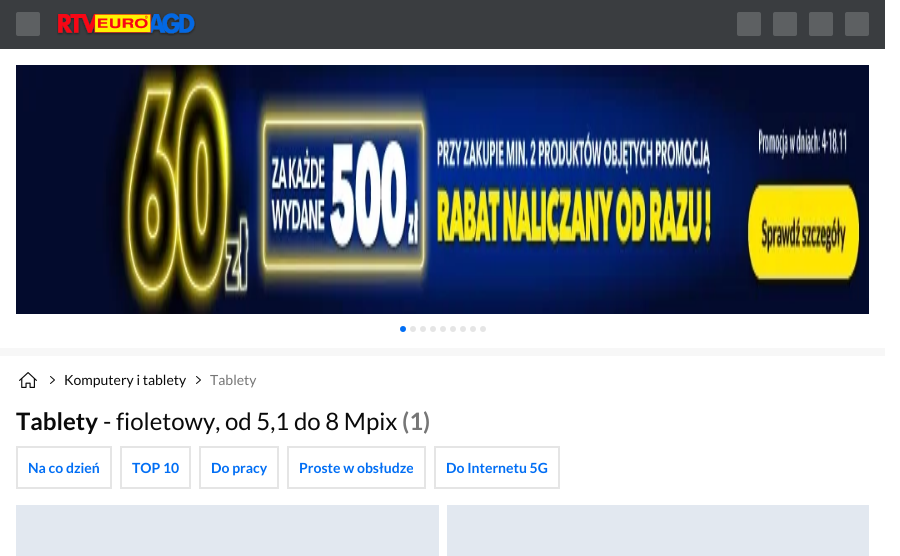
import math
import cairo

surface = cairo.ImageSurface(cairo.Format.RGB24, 900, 556)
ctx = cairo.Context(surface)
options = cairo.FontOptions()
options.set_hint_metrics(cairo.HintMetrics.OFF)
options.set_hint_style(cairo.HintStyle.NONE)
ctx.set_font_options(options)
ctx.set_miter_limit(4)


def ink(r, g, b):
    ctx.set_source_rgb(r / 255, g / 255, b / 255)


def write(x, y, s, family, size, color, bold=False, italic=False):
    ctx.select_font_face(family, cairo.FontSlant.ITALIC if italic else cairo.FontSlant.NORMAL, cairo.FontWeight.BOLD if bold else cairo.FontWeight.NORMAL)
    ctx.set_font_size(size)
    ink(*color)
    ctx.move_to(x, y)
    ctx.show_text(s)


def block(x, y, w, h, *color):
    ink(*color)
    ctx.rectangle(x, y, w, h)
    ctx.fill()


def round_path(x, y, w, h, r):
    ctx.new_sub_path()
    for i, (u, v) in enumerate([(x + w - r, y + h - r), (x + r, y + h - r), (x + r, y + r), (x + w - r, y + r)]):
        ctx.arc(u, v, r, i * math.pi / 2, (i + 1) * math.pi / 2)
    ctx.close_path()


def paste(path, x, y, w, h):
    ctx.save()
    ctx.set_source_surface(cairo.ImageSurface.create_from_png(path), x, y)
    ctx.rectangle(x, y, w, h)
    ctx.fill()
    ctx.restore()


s1 = dict(family="Lato", size=14, color=(10, 10, 10))
s2 = dict(family="Lato", size=14, color=(118, 118, 118))
s3 = dict(family="Lato", size=24, color=(10, 10, 10), bold=True)
s4 = dict(family="Lato", size=24, color=(10, 10, 10))
s5 = dict(family="Lato", size=24, color=(118, 118, 118), bold=True)
s6 = dict(family="Lato", size=14, color=(1, 110, 244), bold=True)

ink(255, 255, 255)
ctx.paint()
block(0, 0, 885, 49, 58, 61, 64)
ink(93, 96, 98)
round_path(16, 12, 24, 24, 2)
ctx.fill()
paste("pic1.png", 57, 13, 139, 23)
round_path(737, 12, 24, 24, 2)
ctx.fill()
round_path(773, 12, 24, 24, 2)
ctx.fill()
round_path(809, 12, 24, 24, 2)
ctx.fill()
round_path(845, 12, 24, 24, 2)
ctx.fill()
block(0, 348, 885, 8, 247, 247, 247)
paste("pic2.png", 16, 65, 853, 249)
ink(1, 110, 244)
ctx.arc(403, 329, 3, 0, 2 * math.pi)
ctx.fill()
ink(229, 229, 229)
ctx.arc(413, 329, 3, 0, 2 * math.pi)
ctx.fill()
ctx.arc(423, 329, 3, 0, 2 * math.pi)
ctx.fill()
ctx.arc(433, 329, 3, 0, 2 * math.pi)
ctx.fill()
ctx.arc(443, 329, 3, 0, 2 * math.pi)
ctx.fill()
ctx.arc(453, 329, 3, 0, 2 * math.pi)
ctx.fill()
ctx.arc(463, 329, 3, 0, 2 * math.pi)
ctx.fill()
ctx.arc(473, 329, 3, 0, 2 * math.pi)
ctx.fill()
ctx.arc(483, 329, 3, 0, 2 * math.pi)
ctx.fill()
paste("pic3.png", 19, 372, 18, 16)
ctx.new_path()
ctx.move_to(50.5, 383.5)
ctx.line_to(54.5, 380)
ctx.line_to(50.5, 376.5)
ink(10, 10, 10)
ctx.set_line_width(1)
ctx.set_line_cap(cairo.LineCap.ROUND)
ctx.set_line_join(cairo.LineJoin.ROUND)
ctx.stroke()
write(64, 385, "Komputery i tablety", **s1)
ctx.new_path()
ctx.move_to(196.5, 383.5)
ctx.line_to(200.5, 380)
ctx.line_to(196.5, 376.5)
ctx.stroke()
write(210, 385, "Tablety", **s2)
write(16, 430, "Tablety", **s3)
write(103, 430, "- fioletowy, od 5,1 do 8 Mpix", **s4)
write(402, 430, "(1)", **s5)
ctx.rectangle(17, 447, 94, 41)
ink(229, 229, 229)
ctx.set_line_width(2)
ctx.set_line_cap(cairo.LineCap.BUTT)
ctx.set_line_join(cairo.LineJoin.MITER)
ctx.stroke()
write(28, 473, "Na co dzień", **s6)
ctx.rectangle(121, 447, 69, 41)
ink(229, 229, 229)
ctx.stroke()
write(132, 473, "TOP 10", **s6)
ctx.rectangle(200, 447, 78, 41)
ink(229, 229, 229)
ctx.stroke()
write(211, 473, "Do pracy", **s6)
ctx.rectangle(288, 447, 137, 41)
ink(229, 229, 229)
ctx.stroke()
write(299, 473, "Proste w obsłudze", **s6)
ctx.rectangle(435, 447, 124, 41)
ink(229, 229, 229)
ctx.stroke()
write(446, 473, "Do Internetu 5G", **s6)
block(16, 505, 423, 51, 226, 232, 240)
block(447, 505, 422, 51, 226, 232, 240)
surface.write_to_png("screenshot.png")
